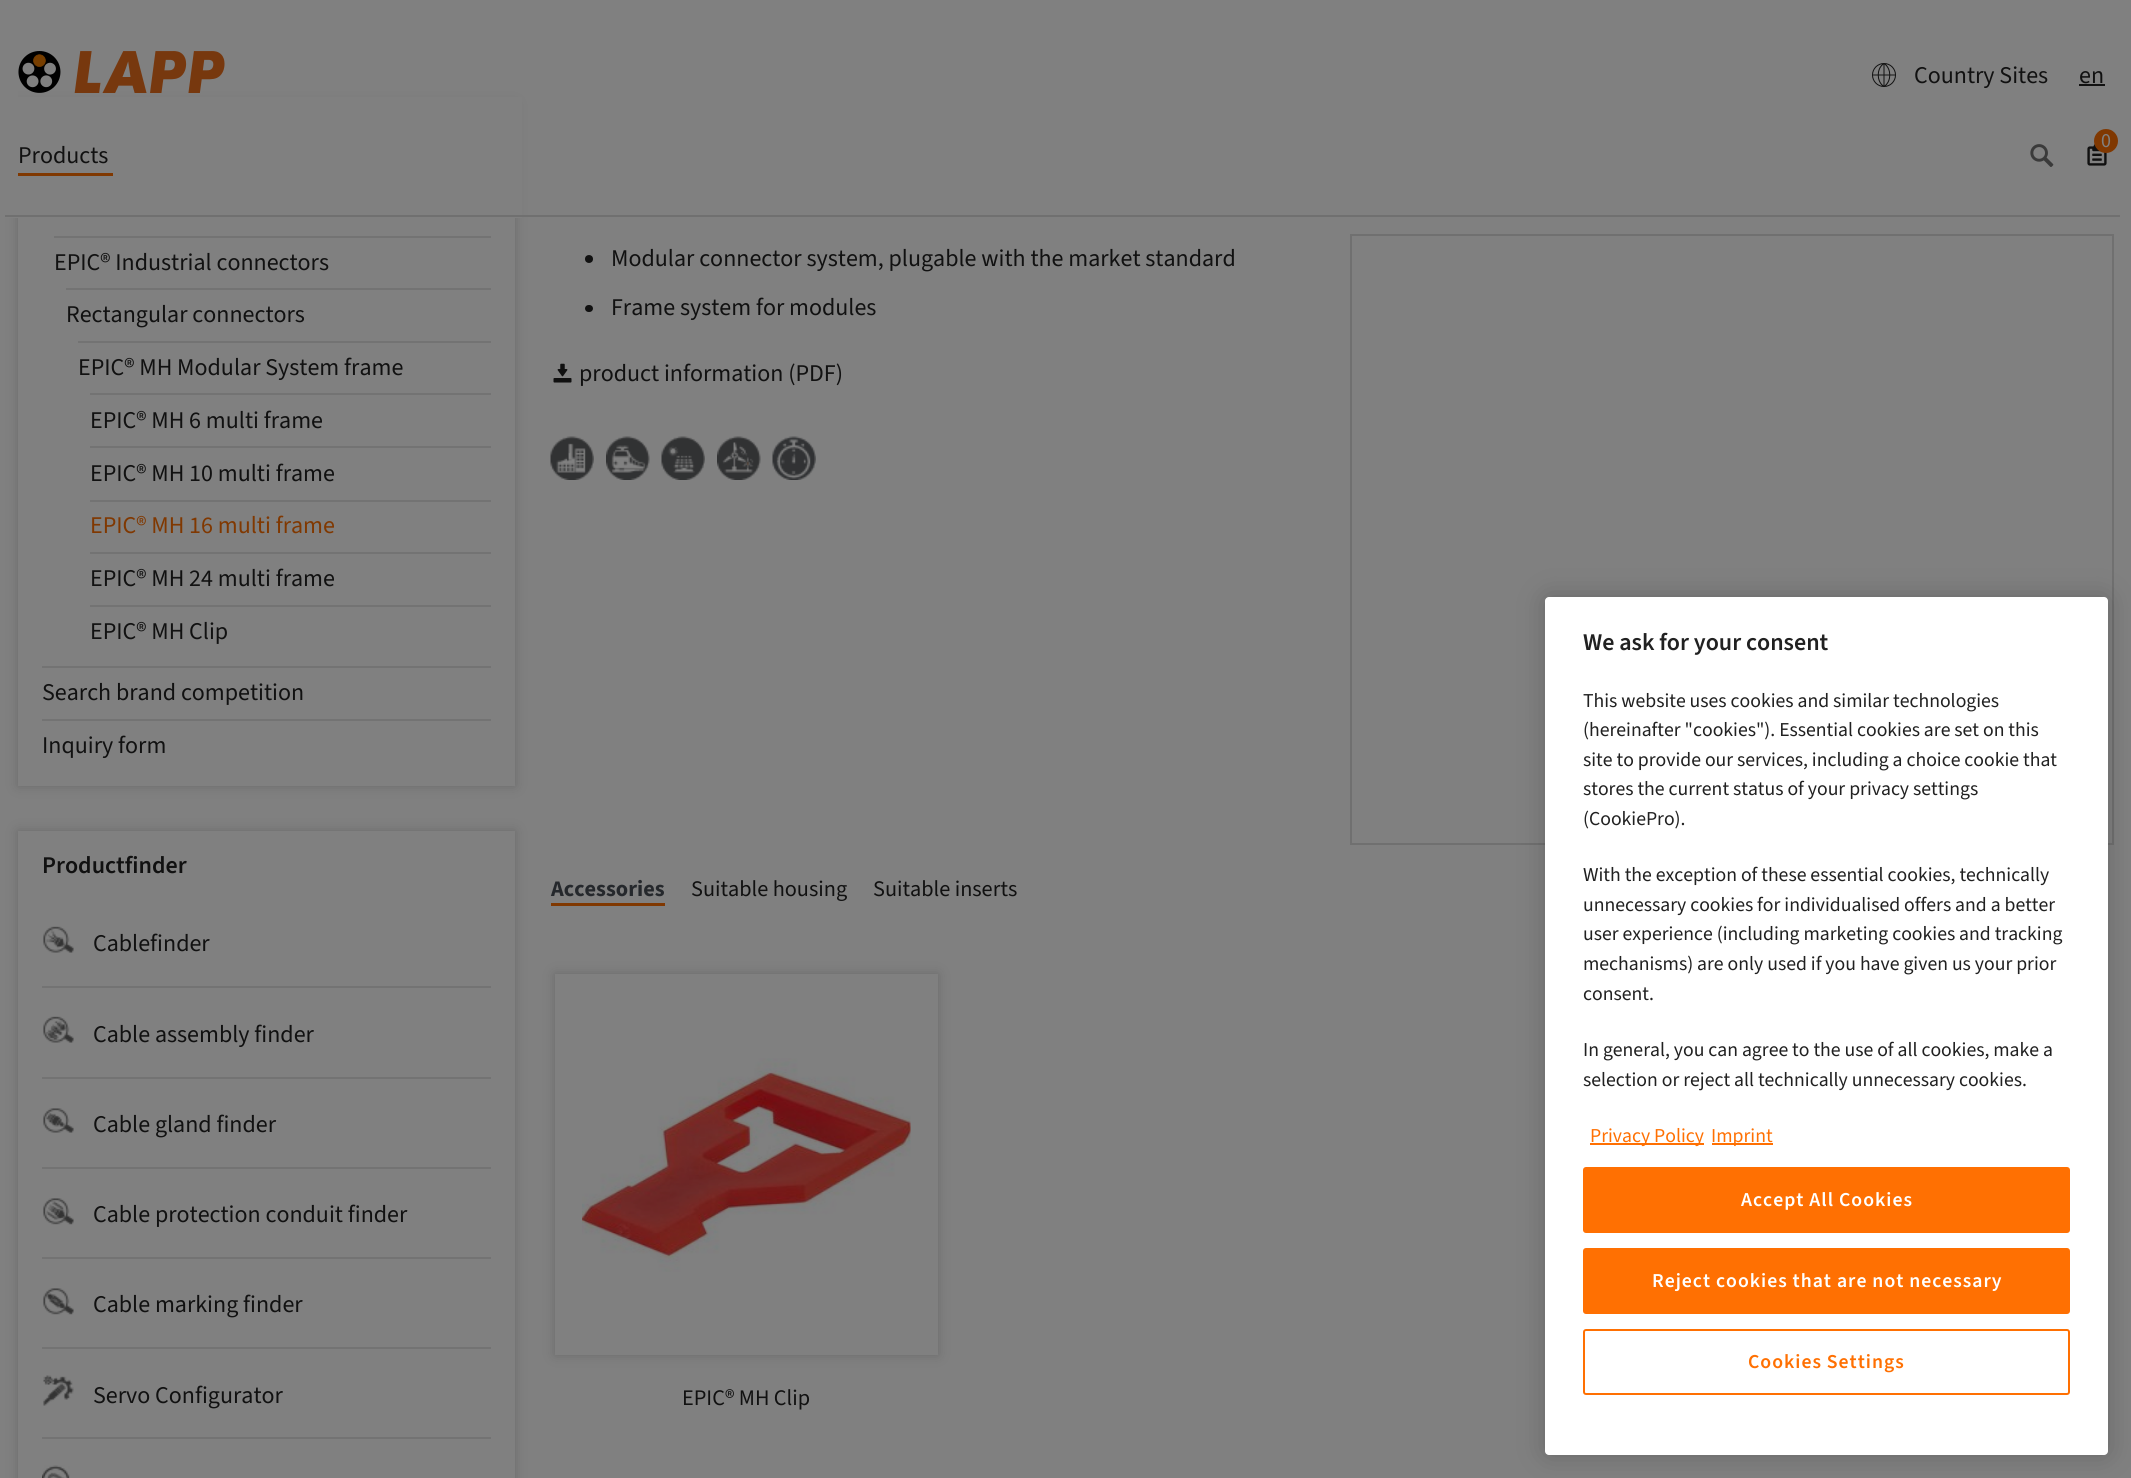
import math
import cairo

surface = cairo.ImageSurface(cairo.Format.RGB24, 2131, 1478)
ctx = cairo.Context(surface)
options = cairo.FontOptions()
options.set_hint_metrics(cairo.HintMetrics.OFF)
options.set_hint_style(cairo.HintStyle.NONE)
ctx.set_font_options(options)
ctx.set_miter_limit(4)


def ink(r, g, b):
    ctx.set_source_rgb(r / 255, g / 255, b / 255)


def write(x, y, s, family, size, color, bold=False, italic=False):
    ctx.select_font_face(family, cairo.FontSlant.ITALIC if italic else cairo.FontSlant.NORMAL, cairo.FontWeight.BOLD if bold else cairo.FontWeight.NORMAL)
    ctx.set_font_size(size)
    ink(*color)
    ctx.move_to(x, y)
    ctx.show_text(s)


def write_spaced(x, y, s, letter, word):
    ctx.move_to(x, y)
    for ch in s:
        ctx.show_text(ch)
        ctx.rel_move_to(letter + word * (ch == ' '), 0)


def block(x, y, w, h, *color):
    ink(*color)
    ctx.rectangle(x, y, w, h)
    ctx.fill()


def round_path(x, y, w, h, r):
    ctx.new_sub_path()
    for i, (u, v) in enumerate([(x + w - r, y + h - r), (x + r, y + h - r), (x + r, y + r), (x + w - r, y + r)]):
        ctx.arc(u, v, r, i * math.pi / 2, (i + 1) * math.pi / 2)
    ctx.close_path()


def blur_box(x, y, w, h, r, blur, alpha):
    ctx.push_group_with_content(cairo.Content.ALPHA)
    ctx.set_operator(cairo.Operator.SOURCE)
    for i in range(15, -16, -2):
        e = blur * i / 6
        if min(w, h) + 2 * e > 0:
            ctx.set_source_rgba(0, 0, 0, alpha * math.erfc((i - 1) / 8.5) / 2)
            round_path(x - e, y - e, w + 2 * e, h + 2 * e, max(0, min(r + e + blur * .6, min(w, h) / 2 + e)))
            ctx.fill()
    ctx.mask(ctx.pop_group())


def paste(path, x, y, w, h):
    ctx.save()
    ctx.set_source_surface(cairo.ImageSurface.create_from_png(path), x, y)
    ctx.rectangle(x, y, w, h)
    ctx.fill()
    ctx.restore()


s1 = dict(family="Source Sans 3", size=24, color=(17, 17, 17))
s2 = dict(family="Source Sans 3", size=20, color=(128, 128, 128))
s3 = dict(family="Source Sans 3", size=24, color=(128, 56, 1))
s4 = dict(family="Source Sans 3 SemiBold", size=24, color=(17, 17, 17))
s5 = dict(family="Source Sans 3", size=22.25, color=(37, 40, 44), bold=True)
s6 = dict(family="Source Sans 3", size=22.25, color=(17, 17, 17))
s7 = dict(family="Source Sans 3 SemiBold", size=24, color=(33, 33, 33))
s8 = dict(family="Source Sans 3", size=19.7, color=(33, 33, 33))
s9 = dict(family="Source Sans 3", size=19.7, color=(255, 112, 2))

ink(128, 128, 128)
ctx.paint()
ink(17, 17, 17)
blur_box(18, 104, 497, 682, 0, 6, 0.2)
ink(128, 128, 128)
ctx.new_path()
ctx.move_to(3, 0)
ctx.line_to(3, 218)
ctx.line_to(2108, 218)
ctx.line_to(18, 218)
ctx.line_to(18, 0)
ctx.close_path()
ctx.fill()
block(18, 97, 504, 121, 128, 128, 128)
paste("pic1.png", 18, 51, 207, 42)
paste("pic2.png", 1872, 63, 24, 24)
write(1914, 83, "Country Sites", **s1)
write(2079, 83, "en", **s1)
block(2079, 84, 26, 2, 17, 17, 17)
paste("pic3.png", 2087, 144, 20, 22)
ink(128, 56, 1)
ctx.arc(2106, 141, 12, 0, 2 * math.pi)
ctx.fill()
write(2101, 147, "0", **s2)
block(18, 173, 95, 3, 128, 56, 1)
write(18, 163, "Products", **s1)
paste("pic4.png", 2030, 144, 24, 23)
block(5, 215, 2115, 2, 112, 112, 112)
block(18, 218, 497, 568, 128, 128, 128)
block(54, 236, 437, 2, 115, 115, 115)
write(54, 270, "EPIC® Industrial connectors", **s1)
block(66, 288, 425, 2, 115, 115, 115)
write(66, 322, "Rectangular connectors", **s1)
block(78, 341, 413, 2, 115, 115, 115)
write(78, 375, "EPIC® MH Modular System frame", **s1)
block(90, 393, 401, 2, 115, 115, 115)
write(90, 428, "EPIC® MH 6 multi frame", **s1)
block(90, 446, 401, 2, 115, 115, 115)
write(90, 481, "EPIC® MH 10 multi frame", **s1)
block(90, 500, 401, 2, 115, 115, 115)
write(90, 533, "EPIC® MH 16 multi frame", **s3)
block(90, 552, 401, 2, 115, 115, 115)
write(90, 586, "EPIC® MH 24 multi frame", **s1)
block(90, 605, 401, 2, 115, 115, 115)
write(90, 639, "EPIC® MH Clip", **s1)
block(42, 666, 449, 2, 115, 115, 115)
write(42, 700, "Search brand competition", **s1)
block(42, 719, 449, 2, 115, 115, 115)
write(42, 753, "Inquiry form", **s1)
ink(17, 17, 17)
blur_box(18, 831, 497, 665, 0, 6, 0.2)
block(18, 831, 497, 647, 128, 128, 128)
write(42, 873, "Productfinder", **s4)
paste("pic5.png", 43, 926, 31, 27)
write(93, 951, "Cablefinder", **s1)
block(42, 986, 449, 2, 115, 115, 115)
paste("pic6.png", 43, 1016, 31, 27)
write(93, 1042, "Cable assembly finder", **s1)
block(42, 1077, 449, 2, 115, 115, 115)
paste("pic7.png", 43, 1108, 31, 25)
write(93, 1132, "Cable gland finder", **s1)
block(42, 1167, 449, 2, 115, 115, 115)
paste("pic8.png", 43, 1198, 31, 27)
write(93, 1222, "Cable protection conduit finder", **s1)
block(42, 1257, 449, 2, 115, 115, 115)
paste("pic9.png", 43, 1288, 31, 27)
write(93, 1312, "Cable marking finder", **s1)
block(42, 1347, 449, 2, 115, 115, 115)
paste("pic10.png", 43, 1375, 31, 31)
write(93, 1403, "Servo Configurator", **s1)
block(42, 1437, 449, 2, 115, 115, 115)
paste("pic11.png", 42, 1465, 28, 13)
ink(17, 17, 17)
ctx.arc(589, 259, 4, 0, 2 * math.pi)
ctx.fill()
write(611, 266, "Modular connector system, plugable with the market standard", **s1)
round_path(585, 305, 8, 7, 3.5)
ctx.fill()
write(611, 315, "Frame system for modules", **s1)
paste("pic12.png", 553, 363, 19, 20)
write(579, 381, "product information (PDF)", **s1)
paste("pic13.png", 550, 436, 44, 44)
paste("pic14.png", 606, 436, 44, 44)
paste("pic15.png", 661, 436, 44, 44)
paste("pic16.png", 717, 436, 44, 44)
paste("pic17.png", 772, 436, 44, 44)
ctx.rectangle(1351, 235, 762, 609)
ink(112, 112, 112)
ctx.stroke()
block(551, 903, 114, 3, 128, 56, 1)
write(551, 896, "Accessories", **s5)
write(691, 896, "Suitable housing", **s6)
write(873, 896, "Suitable inserts", **s6)
ink(17, 17, 17)
blur_box(555, 974, 383, 381, 0, 6, 0.2)
block(555, 974, 383, 381, 128, 128, 128)
paste("pic18.png", 582, 1058, 329, 214)
write(682, 1405, "EPIC® MH Clip", **s6)
ink(0, 0, 0)
blur_box(1545, 597, 563, 858, 4, 13.5, 0.2)
ink(255, 255, 255)
round_path(1545, 597, 563, 858, 4)
ctx.fill()
write(1583, 650, "We ask for your consent", **s7)
write(1583, 707, "This website uses cookies and similar technologies", **s8)
write(1583, 736, "(hereinafter \"cookies\"). Essential cookies are set on this", **s8)
write(1583, 766, "site to provide our services, including a choice cookie that", **s8)
write(1583, 795, "stores the current status of your privacy settings", **s8)
write(1583, 825, "(CookiePro).", **s8)
write(1583, 881, "With the exception of these essential cookies, technically", **s8)
write(1583, 911, "unnecessary cookies for individualised offers and a better", **s8)
write(1583, 940, "user experience (including marketing cookies and tracking", **s8)
write(1583, 970, "mechanisms) are only used if you have given us your prior", **s8)
write(1583, 1000, "consent.", **s8)
write(1583, 1056, "In general, you can agree to the use of all cookies, make a", **s8)
write(1583, 1086, "selection or reject all technically unnecessary cookies.", **s8)
block(1590, 1143, 114, 2, 255, 112, 2)
write(1590, 1142, "Privacy Policy", **s9)
block(1712, 1143, 61, 2, 255, 112, 2)
write(1711, 1142, "Imprint", **s9)
round_path(1584, 1168, 485, 64, 2)
ctx.fill_preserve()
ctx.stroke()
ctx.select_font_face("Source Sans 3 SemiBold")
ink(255, 255, 255)
write_spaced(1741, 1206, "Accept All Cookies", 1, 0)
ink(255, 112, 2)
round_path(1584, 1249, 485, 64, 2)
ctx.fill_preserve()
ctx.stroke()
ink(255, 255, 255)
write_spaced(1652, 1287, "Reject cookies that are not necessary", 1, 0)
round_path(1584, 1330, 485, 64, 2)
ink(255, 112, 2)
ctx.stroke()
write_spaced(1748, 1368, "Cookies Settings", 1, 0)
surface.write_to_png("screenshot.png")
